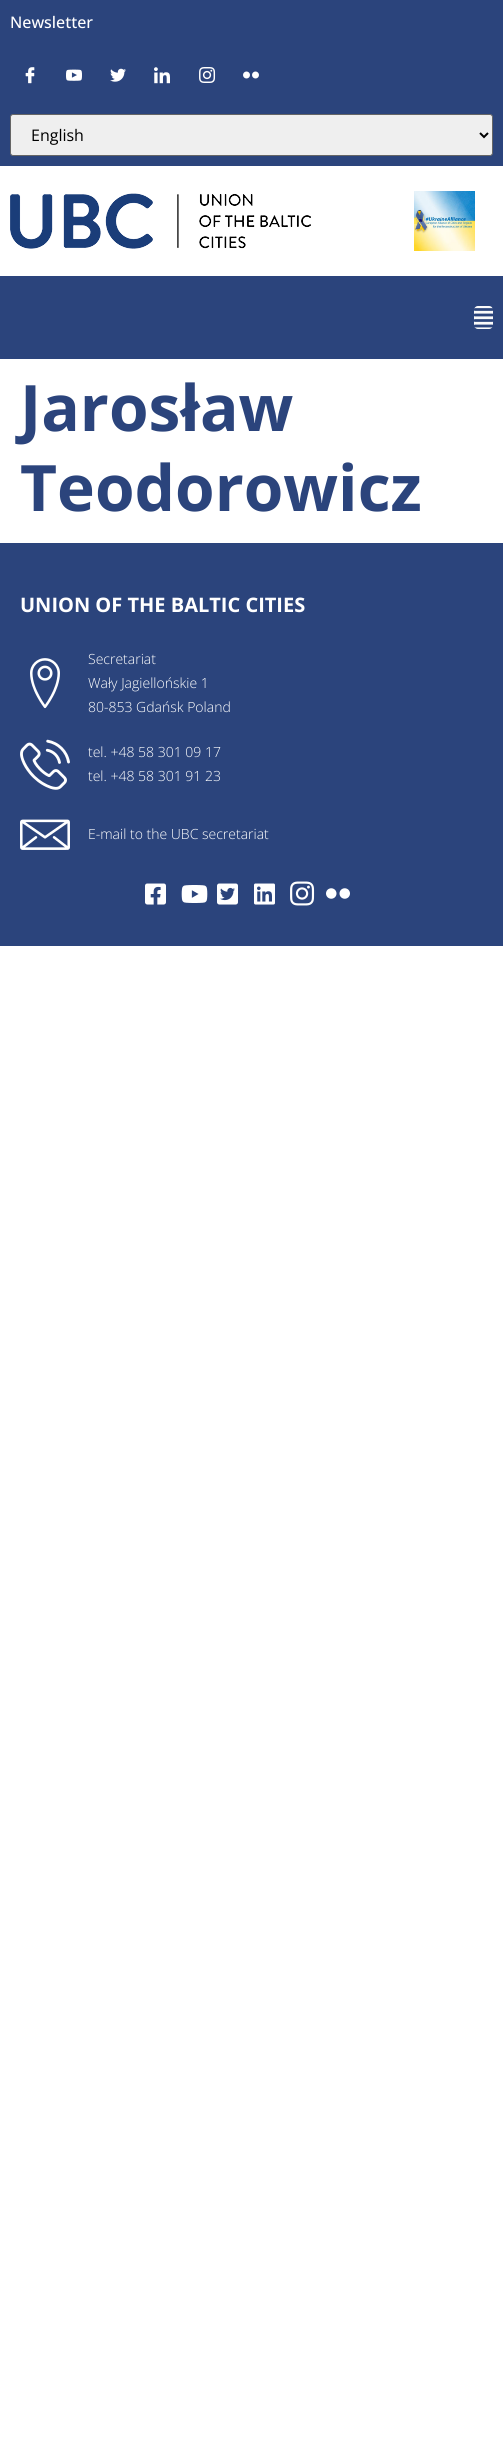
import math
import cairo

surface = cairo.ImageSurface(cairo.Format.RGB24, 503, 2458)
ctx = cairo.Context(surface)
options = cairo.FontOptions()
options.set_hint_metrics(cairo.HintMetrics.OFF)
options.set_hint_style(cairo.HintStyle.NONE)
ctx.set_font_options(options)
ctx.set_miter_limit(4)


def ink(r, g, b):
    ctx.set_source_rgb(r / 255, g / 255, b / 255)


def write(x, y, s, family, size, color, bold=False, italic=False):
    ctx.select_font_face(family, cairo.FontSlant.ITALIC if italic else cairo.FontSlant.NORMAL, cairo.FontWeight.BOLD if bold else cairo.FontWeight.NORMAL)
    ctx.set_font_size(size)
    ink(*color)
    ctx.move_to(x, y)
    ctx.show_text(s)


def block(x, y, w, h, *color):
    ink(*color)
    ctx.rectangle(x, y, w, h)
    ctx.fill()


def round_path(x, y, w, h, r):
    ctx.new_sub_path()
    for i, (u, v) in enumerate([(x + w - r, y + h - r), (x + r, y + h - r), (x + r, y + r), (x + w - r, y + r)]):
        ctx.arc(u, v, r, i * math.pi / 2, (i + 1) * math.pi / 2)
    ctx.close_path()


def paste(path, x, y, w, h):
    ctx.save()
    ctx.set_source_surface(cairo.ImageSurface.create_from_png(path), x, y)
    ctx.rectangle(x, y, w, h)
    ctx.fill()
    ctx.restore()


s1 = dict(family="Open Sans Medium", size=16, color=(255, 255, 255))
s2 = dict(family="Open Sans", size=16, color=(0, 0, 0))
s3 = dict(family="Open Sans", size=64, color=(43, 68, 124), bold=True)
s4 = dict(family="Open Sans", size=20, color=(255, 255, 255), bold=True)
s5 = dict(family="Open Sans Light", size=14, color=(255, 255, 255))

ink(255, 255, 255)
ctx.paint()
block(0, 0, 503, 166, 43, 68, 124)
write(10, 28, "Newsletter", **s1)
paste("pic1.png", 25, 67, 10, 17)
paste("pic2.png", 66, 69, 16, 12)
paste("pic3.png", 110, 68, 16, 14)
paste("pic4.png", 154, 67, 16, 17)
paste("pic5.png", 199, 67, 17, 16)
paste("pic6.png", 243, 71, 16, 8)
ink(239, 239, 239)
round_path(10.5, 114.5, 482, 41, 2.5)
ctx.fill_preserve()
ink(102, 102, 102)
ctx.set_line_width(1)
ctx.stroke()
ctx.new_path()
ctx.move_to(480, 133)
ctx.line_to(484, 137)
ctx.line_to(488, 133)
ink(0, 0, 0)
ctx.set_line_width(2)
ctx.stroke()
write(31, 141, "English", **s2)
paste("pic7.png", 10, 193, 301, 56)
paste("pic8.png", 414, 191, 61, 60)
block(0, 276, 503, 83, 43, 68, 124)
ink(250, 250, 250)
round_path(474, 306, 19, 23, 4)
ctx.fill()
paste("pic9.png", 474, 308, 19, 20)
write(20, 431, "Jarosław", **s3)
write(20, 511, "Teodorowicz", **s3)
block(0, 543, 503, 403, 43, 68, 124)
write(20, 612, "UNION OF THE BALTIC CITIES", **s4)
paste("pic10.png", 30, 658, 30, 51)
write(88, 664, "Secretariat", **s5)
write(88, 688, "Wały Jagiellońskie 1", **s5)
write(88, 712, "80-853 Gdańsk Poland", **s5)
paste("pic11.png", 20, 739, 50, 51)
write(88, 757, "tel. +48 58 301 09 17", **s5)
write(88, 781, "tel. +48 58 301 91 23", **s5)
paste("pic12.png", 20, 819, 50, 31)
write(88, 839, "E-mail to the UBC secretariat", **s5)
paste("pic13.png", 145, 883, 21, 22)
paste("pic14.png", 181, 885, 27, 18)
paste("pic15.png", 217, 883, 21, 22)
paste("pic16.png", 254, 883, 21, 22)
paste("pic17.png", 290, 881, 25, 25)
paste("pic18.png", 326, 888, 24, 11)
surface.write_to_png("screenshot.png")
